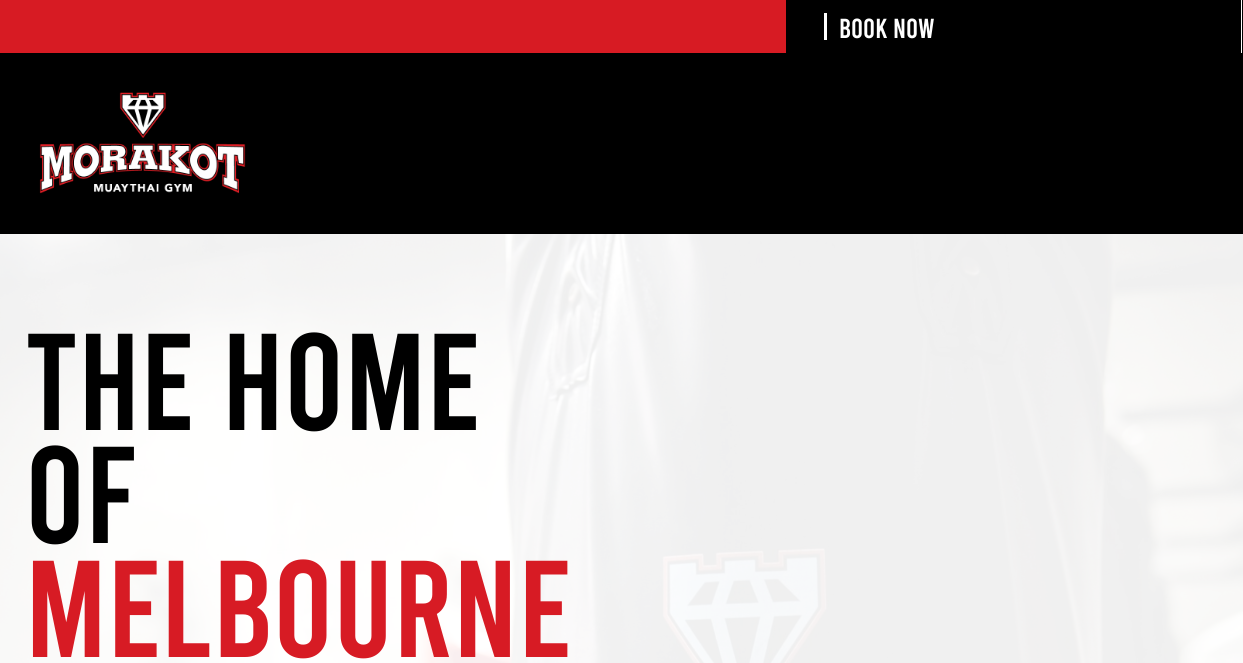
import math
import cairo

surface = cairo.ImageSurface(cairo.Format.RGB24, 1243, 663)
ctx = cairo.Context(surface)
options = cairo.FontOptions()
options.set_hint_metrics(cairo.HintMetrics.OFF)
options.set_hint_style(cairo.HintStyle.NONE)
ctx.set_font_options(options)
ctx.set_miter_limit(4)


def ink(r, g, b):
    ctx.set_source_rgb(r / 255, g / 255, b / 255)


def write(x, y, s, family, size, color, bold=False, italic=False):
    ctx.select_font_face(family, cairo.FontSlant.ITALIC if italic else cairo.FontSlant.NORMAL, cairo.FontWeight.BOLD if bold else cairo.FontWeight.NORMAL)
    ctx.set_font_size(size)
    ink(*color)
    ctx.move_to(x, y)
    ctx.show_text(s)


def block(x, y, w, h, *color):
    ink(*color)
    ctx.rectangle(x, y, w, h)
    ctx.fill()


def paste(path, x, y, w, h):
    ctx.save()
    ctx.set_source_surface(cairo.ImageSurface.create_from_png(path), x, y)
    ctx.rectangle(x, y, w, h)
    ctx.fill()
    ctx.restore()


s1 = dict(family="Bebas", size=27.5, color=(255, 255, 255))
s2 = dict(family="Bebas", size=137.5, color=(0, 0, 0))
s3 = dict(family="Bebas", size=137.5, color=(215, 27, 36))

ink(215, 27, 35)
ctx.paint()
block(786, 0, 457, 53, 0, 0, 0)
block(1241, 0, 1, 53, 255, 255, 255)
block(824, 13, 3, 27, 255, 255, 255)
write(839, 38, "BOOK NOW", **s1)
block(0, 53, 1243, 181, 0, 0, 0)
paste("pic1.png", 39, 92, 207, 102)
paste("pic2.png", 0, 234, 1243, 429)
write(25, 430, "THE HOME", **s2)
write(25, 543, "OF", **s2)
write(25, 657, "MELBOURNE", **s3)
surface.write_to_png("screenshot.png")
